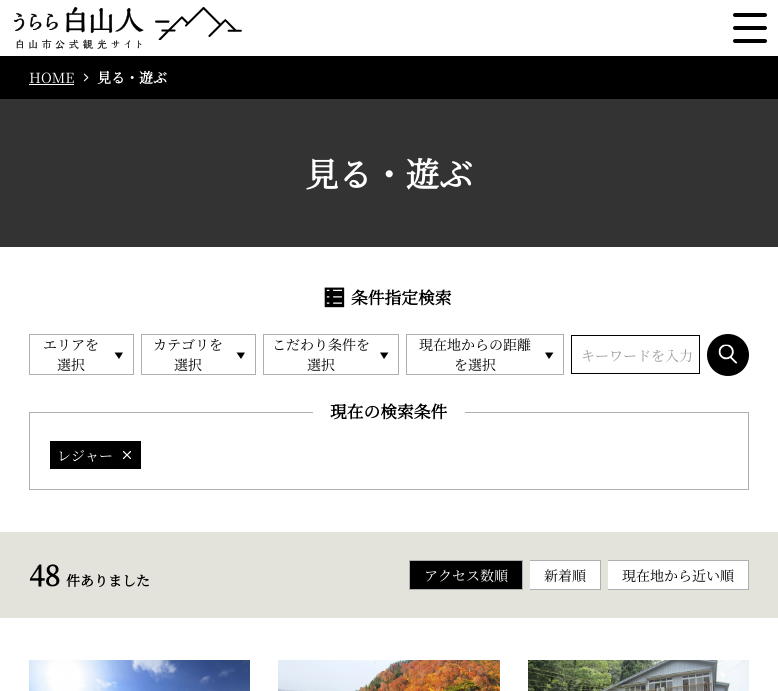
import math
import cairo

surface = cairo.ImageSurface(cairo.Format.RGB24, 778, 691)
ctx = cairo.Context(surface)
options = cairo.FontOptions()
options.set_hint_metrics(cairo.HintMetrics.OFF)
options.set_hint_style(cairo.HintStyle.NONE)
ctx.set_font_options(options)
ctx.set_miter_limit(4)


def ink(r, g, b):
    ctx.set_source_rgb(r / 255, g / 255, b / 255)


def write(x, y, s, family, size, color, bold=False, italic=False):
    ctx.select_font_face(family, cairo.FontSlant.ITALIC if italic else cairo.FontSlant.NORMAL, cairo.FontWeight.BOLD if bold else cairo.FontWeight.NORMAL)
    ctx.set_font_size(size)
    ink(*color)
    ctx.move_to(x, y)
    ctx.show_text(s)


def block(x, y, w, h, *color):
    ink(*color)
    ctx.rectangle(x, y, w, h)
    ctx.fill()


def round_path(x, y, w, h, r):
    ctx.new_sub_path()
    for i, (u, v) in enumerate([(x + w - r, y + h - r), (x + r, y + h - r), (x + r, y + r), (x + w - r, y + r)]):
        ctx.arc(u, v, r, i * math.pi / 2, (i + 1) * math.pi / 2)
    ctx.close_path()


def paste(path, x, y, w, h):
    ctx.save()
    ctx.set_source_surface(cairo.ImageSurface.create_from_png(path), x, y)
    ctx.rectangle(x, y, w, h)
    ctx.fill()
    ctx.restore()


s1 = dict(family="Noto Serif JP ExtraLight", size=14, color=(255, 255, 255))
s2 = dict(family="Noto Serif JP", size=14, color=(255, 255, 255), bold=True)
s3 = dict(family="Noto Serif JP", size=33.5, color=(255, 255, 255), bold=True)
s4 = dict(family="Noto Serif JP", size=16.75, color=(0, 0, 0), bold=True)
s5 = dict(family="Noto Serif JP ExtraLight", size=14, color=(0, 0, 0))
s6 = dict(family="Noto Serif JP ExtraLight", size=14, color=(153, 153, 153))
s7 = dict(family="Noto Serif JP", size=28, color=(0, 0, 0), bold=True)
s8 = dict(family="Noto Serif JP", size=14, color=(0, 0, 0), bold=True)

ink(255, 255, 255)
ctx.paint()
paste("pic1.png", 14, 7, 130, 42)
paste("pic2.png", 155, 7, 87, 33)
ink(0, 0, 0)
round_path(733, 13, 34, 4, 2)
ctx.fill()
round_path(733, 26, 34, 4, 2)
ctx.fill()
round_path(733, 39, 34, 4, 2)
ctx.fill()
block(0, 56, 778, 43, 0, 0, 0)
write(29, 83, "HOME", **s1)
block(29, 84, 45, 1, 255, 255, 255)
paste("pic3.png", 83, 73, 6, 9)
write(97, 83, "見る・遊ぶ", **s2)
block(0, 99, 778, 148, 51, 51, 51)
write(305, 187, "見る・遊ぶ", **s3)
paste("pic4.png", 324, 287, 21, 21)
write(351, 304, "条件指定検索", **s4)
ctx.rectangle(29.5, 334.5, 104, 40)
ink(175, 175, 175)
ctx.set_line_width(1)
ctx.stroke()
write(43, 350, "エリアを", **s5)
ctx.new_path()
ctx.move_to(119, 359)
ctx.line_to(123, 352.5)
ctx.line_to(114.5, 352.5)
ctx.close_path()
ctx.fill()
write(57, 370, "選択", **s5)
ctx.rectangle(141.5, 334.5, 114, 40)
ink(175, 175, 175)
ctx.stroke()
write(153, 350, "カテゴリを", **s5)
ctx.new_path()
ctx.move_to(241, 359)
ctx.line_to(245, 352.5)
ctx.line_to(236.5, 352.5)
ctx.close_path()
ctx.fill()
write(174, 370, "選択", **s5)
ctx.rectangle(263.5, 334.5, 135, 40)
ink(175, 175, 175)
ctx.stroke()
write(272, 350, "こだわり条件を", **s5)
ctx.new_path()
ctx.move_to(384, 359)
ctx.line_to(388.5, 352.5)
ctx.line_to(380, 352.5)
ctx.close_path()
ctx.fill()
write(307, 370, "選択", **s5)
ctx.rectangle(406.5, 334.5, 157, 40)
ink(175, 175, 175)
ctx.stroke()
write(419, 350, "現在地からの距離", **s5)
ctx.new_path()
ctx.move_to(549, 359)
ctx.line_to(553.5, 352.5)
ctx.line_to(545, 352.5)
ctx.close_path()
ctx.fill()
write(454, 370, "を選択", **s5)
ctx.rectangle(571.5, 335.5, 128, 38)
ctx.stroke()
write(581, 361, "キーワードを入力", **s6)
ink(0, 0, 0)
ctx.new_path()
ctx.arc(728, 355, 21, 0, 2 * math.pi)
ctx.fill()
paste("pic5.png", 718, 344, 20, 20)
ctx.rectangle(29.5, 412.5, 719, 77)
ink(175, 175, 175)
ctx.stroke()
block(313, 412, 152, 1, 255, 255, 255)
write(330, 418, "現在の検索条件", **s4)
block(50, 441, 91, 28, 0, 0, 0)
write(57, 461, "レジャー", **s1)
paste("pic6.png", 123, 451, 8, 8)
block(0, 532, 778, 86, 227, 227, 219)
write(29, 586, "48", **s7)
write(66, 586, "件ありました", **s8)
ctx.rectangle(409.5, 560.5, 113, 29)
ctx.fill_preserve()
ink(175, 175, 175)
ctx.stroke()
write(424, 581, "アクセス数順", **s1)
block(530, 561, 70, 28, 255, 255, 255)
block(530, 560, 71, 1, 175, 175, 175)
block(600, 560, 1, 30, 175, 175, 175)
block(530, 589, 71, 1, 175, 175, 175)
write(544, 581, "新着順", **s5)
block(608, 561, 140, 28, 255, 255, 255)
block(608, 560, 141, 1, 175, 175, 175)
block(748, 560, 1, 30, 175, 175, 175)
block(608, 589, 141, 1, 175, 175, 175)
write(622, 581, "現在地から近い順", **s5)
paste("pic7.png", 29, 660, 221, 31)
paste("pic8.png", 278, 660, 222, 31)
paste("pic9.png", 528, 660, 221, 31)
surface.write_to_png("screenshot.png")
